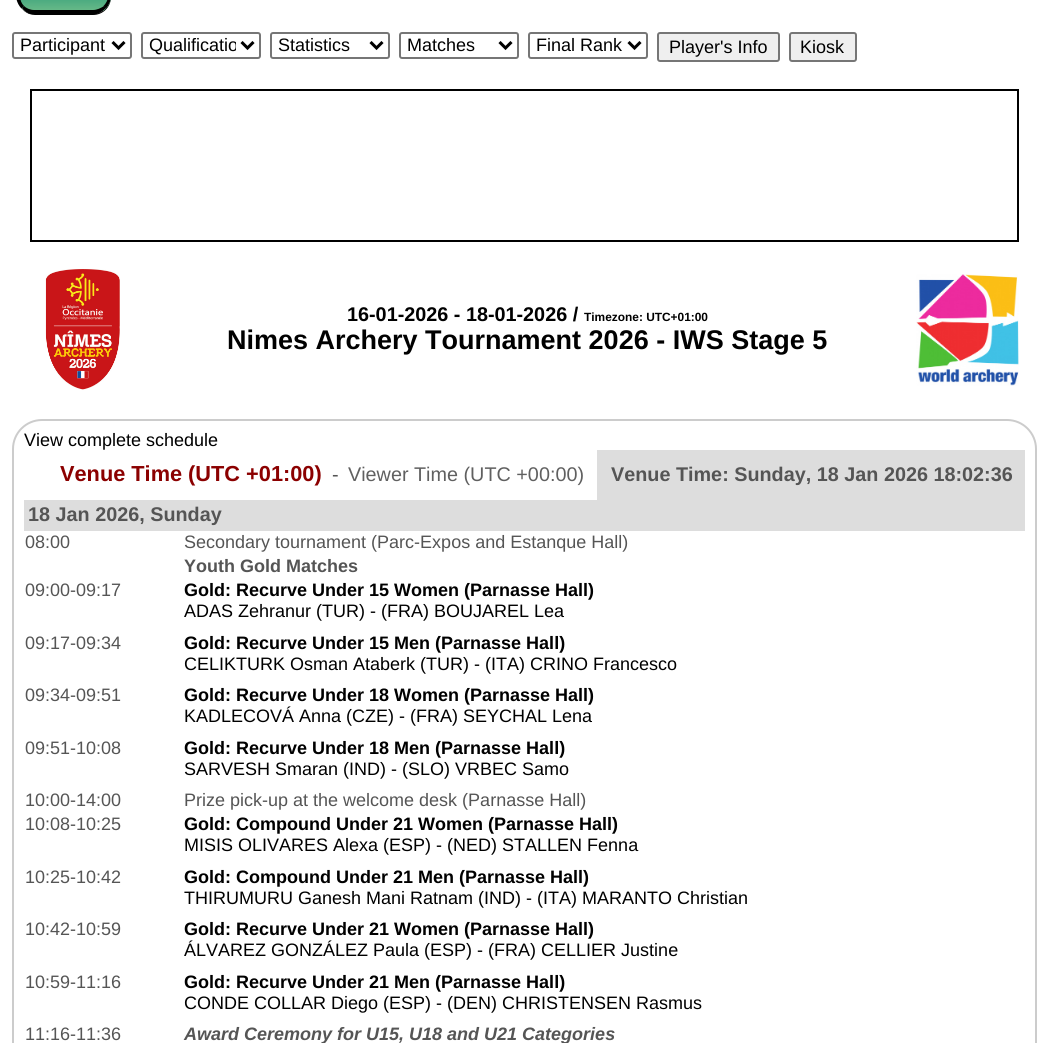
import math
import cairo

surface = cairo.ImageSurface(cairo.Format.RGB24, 1048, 1043)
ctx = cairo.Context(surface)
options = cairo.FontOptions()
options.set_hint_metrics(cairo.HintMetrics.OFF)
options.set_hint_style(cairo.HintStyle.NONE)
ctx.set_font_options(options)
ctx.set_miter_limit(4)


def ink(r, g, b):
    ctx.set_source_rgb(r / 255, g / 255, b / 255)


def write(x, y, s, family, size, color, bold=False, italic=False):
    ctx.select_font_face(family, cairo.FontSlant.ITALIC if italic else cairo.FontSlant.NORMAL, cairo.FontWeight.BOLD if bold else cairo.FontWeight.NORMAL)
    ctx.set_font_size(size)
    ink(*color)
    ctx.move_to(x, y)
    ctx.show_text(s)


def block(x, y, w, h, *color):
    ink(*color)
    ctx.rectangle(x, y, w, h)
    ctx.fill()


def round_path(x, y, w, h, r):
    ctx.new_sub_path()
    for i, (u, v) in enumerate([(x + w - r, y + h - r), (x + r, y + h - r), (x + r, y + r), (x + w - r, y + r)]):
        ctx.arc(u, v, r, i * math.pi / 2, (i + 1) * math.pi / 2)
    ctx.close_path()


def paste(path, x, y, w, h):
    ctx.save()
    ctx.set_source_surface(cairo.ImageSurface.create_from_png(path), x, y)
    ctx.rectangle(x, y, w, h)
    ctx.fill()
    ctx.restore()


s1 = dict(family="Liberation Sans", size=18, color=(0, 0, 0))
s2 = dict(family="Liberation Sans", size=19.8, color=(0, 0, 0), bold=True)
s3 = dict(family="Liberation Sans", size=11.9, color=(0, 0, 0), bold=True)
s4 = dict(family="Liberation Sans", size=27, color=(0, 0, 0), bold=True)
s5 = dict(family="Liberation Sans", size=21.75, color=(139, 0, 0), bold=True)
s6 = dict(family="Liberation Sans", size=19.8, color=(85, 85, 85))
s7 = dict(family="Liberation Sans", size=19.8, color=(96, 96, 96))
s8 = dict(family="Liberation Sans", size=19.8, color=(85, 85, 85), bold=True)
s9 = dict(family="Liberation Sans", size=18, color=(85, 85, 85))
s10 = dict(family="Liberation Sans", size=18, color=(85, 85, 85), bold=True)
s11 = dict(family="Liberation Sans", size=18, color=(0, 0, 0), bold=True)
s12 = dict(family="Liberation Sans", size=18, color=(85, 85, 85), bold=True, italic=True)

ink(255, 255, 255)
ctx.paint()
ink(0, 0, 0)
ctx.new_path()
ctx.move_to(18, 2)
ctx.curve_to(20, 9, 27, 15, 35, 15)
ctx.line_to(93, 15)
ctx.curve_to(103, 15, 111, 7, 111, -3)
ctx.line_to(111, -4)
ctx.curve_to(111, 5, 103, 14, 93, 14)
ctx.line_to(34, 14)
ctx.curve_to(27, 14, 20, 9, 18, 2)
ctx.close_path()
ctx.fill()
ctx.save()
round_path(17, -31, 94, 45, 18)
ctx.clip()
gradient = cairo.LinearGradient(64, -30, 64, 11)
gradient.add_color_stop_rgba(0, 0, 0.51, 0.424, 1)
gradient.add_color_stop_rgba(1, 0.408, 0.729, 0.533, 1)
ctx.set_source(gradient)
ctx.rectangle(17, 0, 94, 11)
ctx.fill()
ctx.restore()
ctx.new_path()
ctx.move_to(111, -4)
ctx.curve_to(111, -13.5, 112, -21.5, 104, -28)
ctx.line_to(102, -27)
ctx.curve_to(105.5, -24, 108, -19.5, 108, -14)
ctx.line_to(108, -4)
ctx.curve_to(108, 0, 106, 3.5, 103.5, 6)
ctx.line_to(106, 8.5)
ctx.curve_to(109, 5, 111, 0.5, 111, -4)
ctx.close_path()
ctx.fill()
ctx.new_path()
ctx.move_to(30, 14)
ctx.curve_to(27, 13, 24, 11, 22, 8)
ctx.line_to(24, 6)
ctx.curve_to(26, 8, 30, 10, 34, 10)
ctx.line_to(93, 10)
ctx.curve_to(97, 10, 101, 8, 104, 6)
ctx.line_to(106, 8)
ctx.curve_to(103, 11, 100, 13, 97, 14)
ctx.close_path()
ctx.fill()
ctx.new_path()
ctx.move_to(16.5, -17.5)
ctx.curve_to(17.5, -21.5, 20, -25.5, 23.5, -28)
ctx.line_to(25.5, -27)
ctx.curve_to(22, -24, 20, -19.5, 20, -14)
ctx.line_to(20, -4)
ctx.curve_to(20, 0, 21.5, 3.5, 24, 6)
ctx.line_to(21.5, 8.5)
ctx.curve_to(19, 6, 17.5, 3, 16.5, -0.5)
ctx.close_path()
ctx.fill()
round_path(13, 33, 118, 25, 2)
ink(118, 118, 118)
ctx.stroke()
ctx.new_path()
ctx.move_to(112.5, 42)
ctx.line_to(118.5, 48)
ctx.line_to(124.5, 42)
ink(0, 0, 0)
ctx.set_line_width(3)
ctx.stroke()
write(20, 51, "Participant", **s1)
round_path(142, 33, 118, 25, 2)
ink(118, 118, 118)
ctx.set_line_width(2)
ctx.stroke()
ctx.new_path()
ctx.move_to(241.5, 42)
ctx.line_to(247.5, 48)
ctx.line_to(253.5, 42)
ink(0, 0, 0)
ctx.set_line_width(3)
ctx.stroke()
ctx.save()
ctx.rectangle(149, 33, 87, 24)
ctx.clip()
write(149, 51, "Qualificatio", **s1)
ctx.restore()
round_path(271, 33, 118, 25, 2)
ink(118, 118, 118)
ctx.set_line_width(2)
ctx.stroke()
ctx.new_path()
ctx.move_to(370.5, 42)
ctx.line_to(376.5, 48)
ctx.line_to(382.5, 42)
ink(0, 0, 0)
ctx.set_line_width(3)
ctx.stroke()
write(278, 51, "Statistics", **s1)
round_path(400, 33, 118, 25, 2)
ink(118, 118, 118)
ctx.set_line_width(2)
ctx.stroke()
ctx.new_path()
ctx.move_to(499.5, 42)
ctx.line_to(505.5, 48)
ctx.line_to(511.5, 42)
ink(0, 0, 0)
ctx.set_line_width(3)
ctx.stroke()
write(407, 51, "Matches", **s1)
round_path(529, 33, 118, 25, 2)
ink(118, 118, 118)
ctx.set_line_width(2)
ctx.stroke()
ctx.new_path()
ctx.move_to(628.5, 42)
ctx.line_to(634.5, 48)
ctx.line_to(640.5, 42)
ink(0, 0, 0)
ctx.set_line_width(3)
ctx.stroke()
write(536, 51, "Final Rank", **s1)
ink(239, 239, 239)
round_path(658, 33, 121, 28, 2)
ctx.fill_preserve()
ink(118, 118, 118)
ctx.set_line_width(2)
ctx.stroke()
write(669, 53, "Player's Info", **s1)
ink(239, 239, 239)
round_path(790, 33, 66, 28, 2)
ctx.fill_preserve()
ink(118, 118, 118)
ctx.stroke()
write(800, 53, "Kiosk", **s1)
ctx.rectangle(31, 90, 987, 151)
ctx.stroke()
paste("pic1.png", 45, 269, 75, 121)
write(347, 321, "16-01-2026 - 18-01-2026 /", **s2)
write(584, 321, "Timezone: UTC+01:00", **s3)
write(227, 349, "Nimes Archery Tournament 2026 - IWS Stage 5", **s4)
paste("pic2.png", 916, 274, 103, 112)
round_path(13, 420, 1023, 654, 29)
ink(204, 204, 204)
ctx.stroke()
write(24, 446, "View complete schedule", **s1)
write(60, 481, "Venue Time (UTC +01:00)", **s5)
write(332, 481, "-", **s6)
write(348, 481, "Viewer Time (UTC +00:00)", **s7)
block(597, 450, 428, 50, 221, 221, 221)
write(611, 481, "Venue Time: Sunday, 18 Jan 2026 18:02:36", **s8)
block(24, 500, 1001, 31, 221, 221, 221)
write(28, 521, "18 Jan 2026, Sunday", **s8)
write(25, 548, "08:00", **s9)
write(184, 548, "Secondary tournament (Parc-Expos and Estanque Hall)", **s9)
write(184, 572, "Youth Gold Matches", **s10)
write(25, 596, "09:00-09:17", **s9)
write(184, 596, "Gold: Recurve Under 15 Women (Parnasse Hall)", **s11)
write(184, 617, "ADAS Zehranur (TUR) - (FRA) BOUJAREL Lea", **s1)
write(25, 649, "09:17-09:34", **s9)
write(184, 649, "Gold: Recurve Under 15 Men (Parnasse Hall)", **s11)
write(184, 670, "CELIKTURK Osman Ataberk (TUR) - (ITA) CRINO Francesco", **s1)
write(25, 701, "09:34-09:51", **s9)
write(184, 701, "Gold: Recurve Under 18 Women (Parnasse Hall)", **s11)
write(184, 722, "KADLECOVÁ Anna (CZE) - (FRA) SEYCHAL Lena", **s1)
write(25, 754, "09:51-10:08", **s9)
write(184, 754, "Gold: Recurve Under 18 Men (Parnasse Hall)", **s11)
write(184, 775, "SARVESH Smaran (IND) - (SLO) VRBEC Samo", **s1)
write(25, 806, "10:00-14:00", **s9)
write(184, 806, "Prize pick-up at the welcome desk (Parnasse Hall)", **s9)
write(25, 830, "10:08-10:25", **s9)
write(184, 830, "Gold: Compound Under 21 Women (Parnasse Hall)", **s11)
write(184, 851, "MISIS OLIVARES Alexa (ESP) - (NED) STALLEN Fenna", **s1)
write(25, 883, "10:25-10:42", **s9)
write(184, 883, "Gold: Compound Under 21 Men (Parnasse Hall)", **s11)
write(184, 904, "THIRUMURU Ganesh Mani Ratnam (IND) - (ITA) MARANTO Christian", **s1)
write(25, 935, "10:42-10:59", **s9)
write(184, 935, "Gold: Recurve Under 21 Women (Parnasse Hall)", **s11)
write(184, 956, "ÁLVAREZ GONZÁLEZ Paula (ESP) - (FRA) CELLIER Justine", **s1)
write(25, 988, "10:59-11:16", **s9)
write(184, 988, "Gold: Recurve Under 21 Men (Parnasse Hall)", **s11)
write(184, 1009, "CONDE COLLAR Diego (ESP) - (DEN) CHRISTENSEN Rasmus", **s1)
write(25, 1040, "11:16-11:36", **s9)
write(184, 1040, "Award Ceremony for U15, U18 and U21 Categories", **s12)
surface.write_to_png("screenshot.png")
